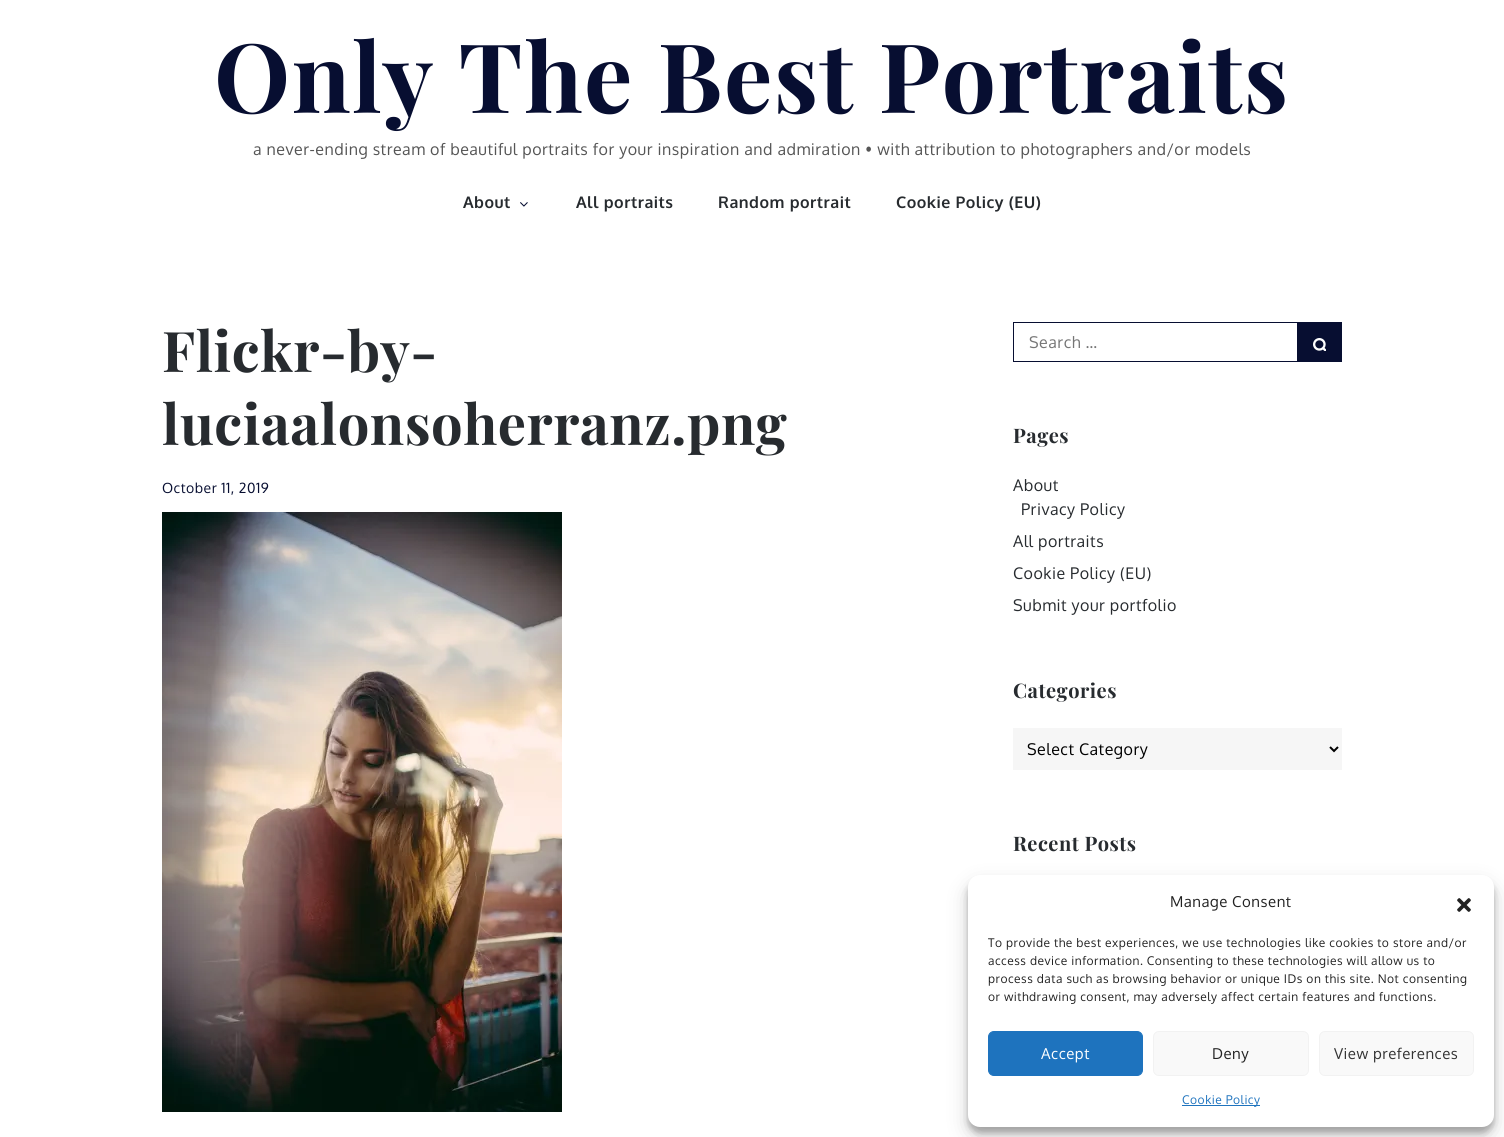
import math
import cairo

surface = cairo.ImageSurface(cairo.Format.RGB24, 1504, 1137)
ctx = cairo.Context(surface)
options = cairo.FontOptions()
options.set_hint_metrics(cairo.HintMetrics.OFF)
options.set_hint_style(cairo.HintStyle.NONE)
ctx.set_font_options(options)
ctx.set_miter_limit(4)


def ink(r, g, b):
    ctx.set_source_rgb(r / 255, g / 255, b / 255)


def write_spaced(x, y, s, letter, word):
    ctx.move_to(x, y)
    for ch in s:
        ctx.show_text(ch)
        ctx.rel_move_to(letter + word * (ch == ' '), 0)


def block(x, y, w, h, *color):
    ink(*color)
    ctx.rectangle(x, y, w, h)
    ctx.fill()


def round_path(x, y, w, h, r):
    ctx.new_sub_path()
    for i, (u, v) in enumerate([(x + w - r, y + h - r), (x + r, y + h - r), (x + r, y + r), (x + w - r, y + r)]):
        ctx.arc(u, v, r, i * math.pi / 2, (i + 1) * math.pi / 2)
    ctx.close_path()


def blur_box(x, y, w, h, r, blur, alpha):
    ctx.push_group_with_content(cairo.Content.ALPHA)
    ctx.set_operator(cairo.Operator.SOURCE)
    for i in range(15, -16, -2):
        e = blur * i / 6
        if min(w, h) + 2 * e > 0:
            ctx.set_source_rgba(0, 0, 0, alpha * math.erfc((i - 1) / 8.5) / 2)
            round_path(x - e, y - e, w + 2 * e, h + 2 * e, max(0, min(r + e + blur * .6, min(w, h) / 2 + e)))
            ctx.fill()
    ctx.mask(ctx.pop_group())


def paste(path, x, y, w, h):
    ctx.save()
    ctx.set_source_surface(cairo.ImageSurface.create_from_png(path), x, y)
    ctx.rectangle(x, y, w, h)
    ctx.fill()
    ctx.restore()


ink(255, 255, 255)
ctx.paint()
ctx.select_font_face("Playfair Display", cairo.FontSlant.NORMAL, cairo.FontWeight.BOLD)
ctx.set_font_size(96)
ink(7, 14, 49)
write_spaced(214, 113, "Only The Best Portraits", 1.5, 0)
ctx.select_font_face("Oxygen")
ctx.set_font_size(16)
ink(85, 85, 85)
write_spaced(253, 155, "a never-ending stream of beautiful portraits for your inspiration and admiration • with attribution to photographers and/or models", 0.5, 0)
ctx.select_font_face("Oxygen", cairo.FontSlant.NORMAL, cairo.FontWeight.BOLD)
ink(39, 43, 47)
write_spaced(463, 208, "About", 0.5, 0)
paste("pic1.png", 520, 202, 8, 5)
write_spaced(576, 208, "All portraits", 0.5, 0)
write_spaced(718, 208, "Random portrait", 0.5, 0)
write_spaced(896, 208, "Cookie Policy (EU)", 0.5, 0)
ctx.select_font_face("Playfair Display", cairo.FontSlant.NORMAL, cairo.FontWeight.BOLD)
ctx.set_font_size(56)
write_spaced(162, 372, "Flickr-by-", 0.5, 0)
write_spaced(162, 445, "luciaalonsoherranz.png", 0.5, 0)
ctx.select_font_face("Oxygen")
ctx.set_font_size(14)
ink(7, 14, 49)
write_spaced(162, 493, "October 11, 2019", 0.5, 0)
paste("pic2.png", 162, 512, 400, 600)
ctx.rectangle(1013.5, 322.5, 328, 39)
ctx.set_line_width(1)
ctx.stroke()
ctx.set_font_size(16)
ink(117, 117, 117)
write_spaced(1029, 348, "Search …", 0.5, 0)
block(1297, 323, 44, 38, 7, 14, 49)
paste("pic3.png", 1313, 338, 13, 13)
ctx.select_font_face("Playfair Display", cairo.FontSlant.NORMAL, cairo.FontWeight.BOLD)
ctx.set_font_size(20)
ink(39, 43, 47)
write_spaced(1013, 443, "Pages", 0.5, 0)
ctx.select_font_face("Oxygen")
ctx.set_font_size(16)
write_spaced(1013, 491, "About", 0.5, 0)
write_spaced(1021, 515, "Privacy Policy", 0.5, 0)
write_spaced(1013, 547, "All portraits", 0.5, 0)
write_spaced(1013, 579, "Cookie Policy (EU)", 0.5, 0)
write_spaced(1013, 611, "Submit your portfolio", 0.5, 0)
ctx.select_font_face("Playfair Display", cairo.FontSlant.NORMAL, cairo.FontWeight.BOLD)
ctx.set_font_size(20)
write_spaced(1013, 698, "Categories", 0.5, 0)
block(1013, 728, 329, 42, 246, 246, 246)
ctx.new_path()
ctx.move_to(1330, 747)
ctx.line_to(1334, 751)
ctx.line_to(1338, 747)
ink(0, 0, 0)
ctx.set_line_width(2)
ctx.stroke()
ctx.select_font_face("Oxygen")
ctx.set_font_size(16)
write_spaced(1027, 755, "Select Category", 0.5, 0)
ctx.select_font_face("Playfair Display", cairo.FontSlant.NORMAL, cairo.FontWeight.BOLD)
ctx.set_font_size(20)
ink(39, 43, 47)
write_spaced(1013, 851, "Recent Posts", 0.5, 0)
ink(0, 0, 0)
blur_box(968, 881, 526, 252, 12, 3, 0.23)
blur_box(968, 885, 526, 252, 12, 10, 0.19)
ink(255, 255, 255)
round_path(968, 875, 526, 252, 12)
ctx.fill()
ctx.select_font_face("Oxygen")
ctx.set_font_size(15)
ink(34, 34, 34)
write_spaced(1170, 907, "Manage Consent", 0.5, 0)
paste("pic4.png", 1457, 898, 14, 14)
ctx.set_font_size(12)
write_spaced(988, 947, "To provide the best experiences, we use technologies like cookies to store and/or", 0.5, 0)
write_spaced(988, 965, "access device information. Consenting to these technologies will allow us to", 0.5, 0)
write_spaced(988, 983, "process data such as browsing behavior or unique IDs on this site. Not consenting", 0.5, 0)
write_spaced(988, 1001, "or withdrawing consent, may adversely affect certain features and functions.", 0.5, 0)
ink(30, 115, 190)
round_path(988.5, 1031.5, 154, 44, 5.5)
ctx.fill_preserve()
ctx.set_line_width(1)
ctx.stroke()
ctx.set_font_size(15)
ink(255, 255, 255)
write_spaced(1041, 1059, "Accept", 0.5, 0)
ink(249, 249, 249)
round_path(1153.5, 1031.5, 155, 44, 5.5)
ctx.fill_preserve()
ink(242, 242, 242)
ctx.stroke()
ink(34, 34, 34)
write_spaced(1212, 1059, "Deny", 0.5, 0)
ink(249, 249, 249)
round_path(1319.5, 1031.5, 154, 44, 5.5)
ctx.fill_preserve()
ink(242, 242, 242)
ctx.stroke()
ink(51, 51, 51)
write_spaced(1334, 1059, "View preferences", 0.5, 0)
block(1182, 1105, 78, 1, 30, 115, 190)
ctx.set_font_size(12)
write_spaced(1182, 1104, "Cookie Policy", 0.5, 0)
surface.write_to_png("screenshot.png")
